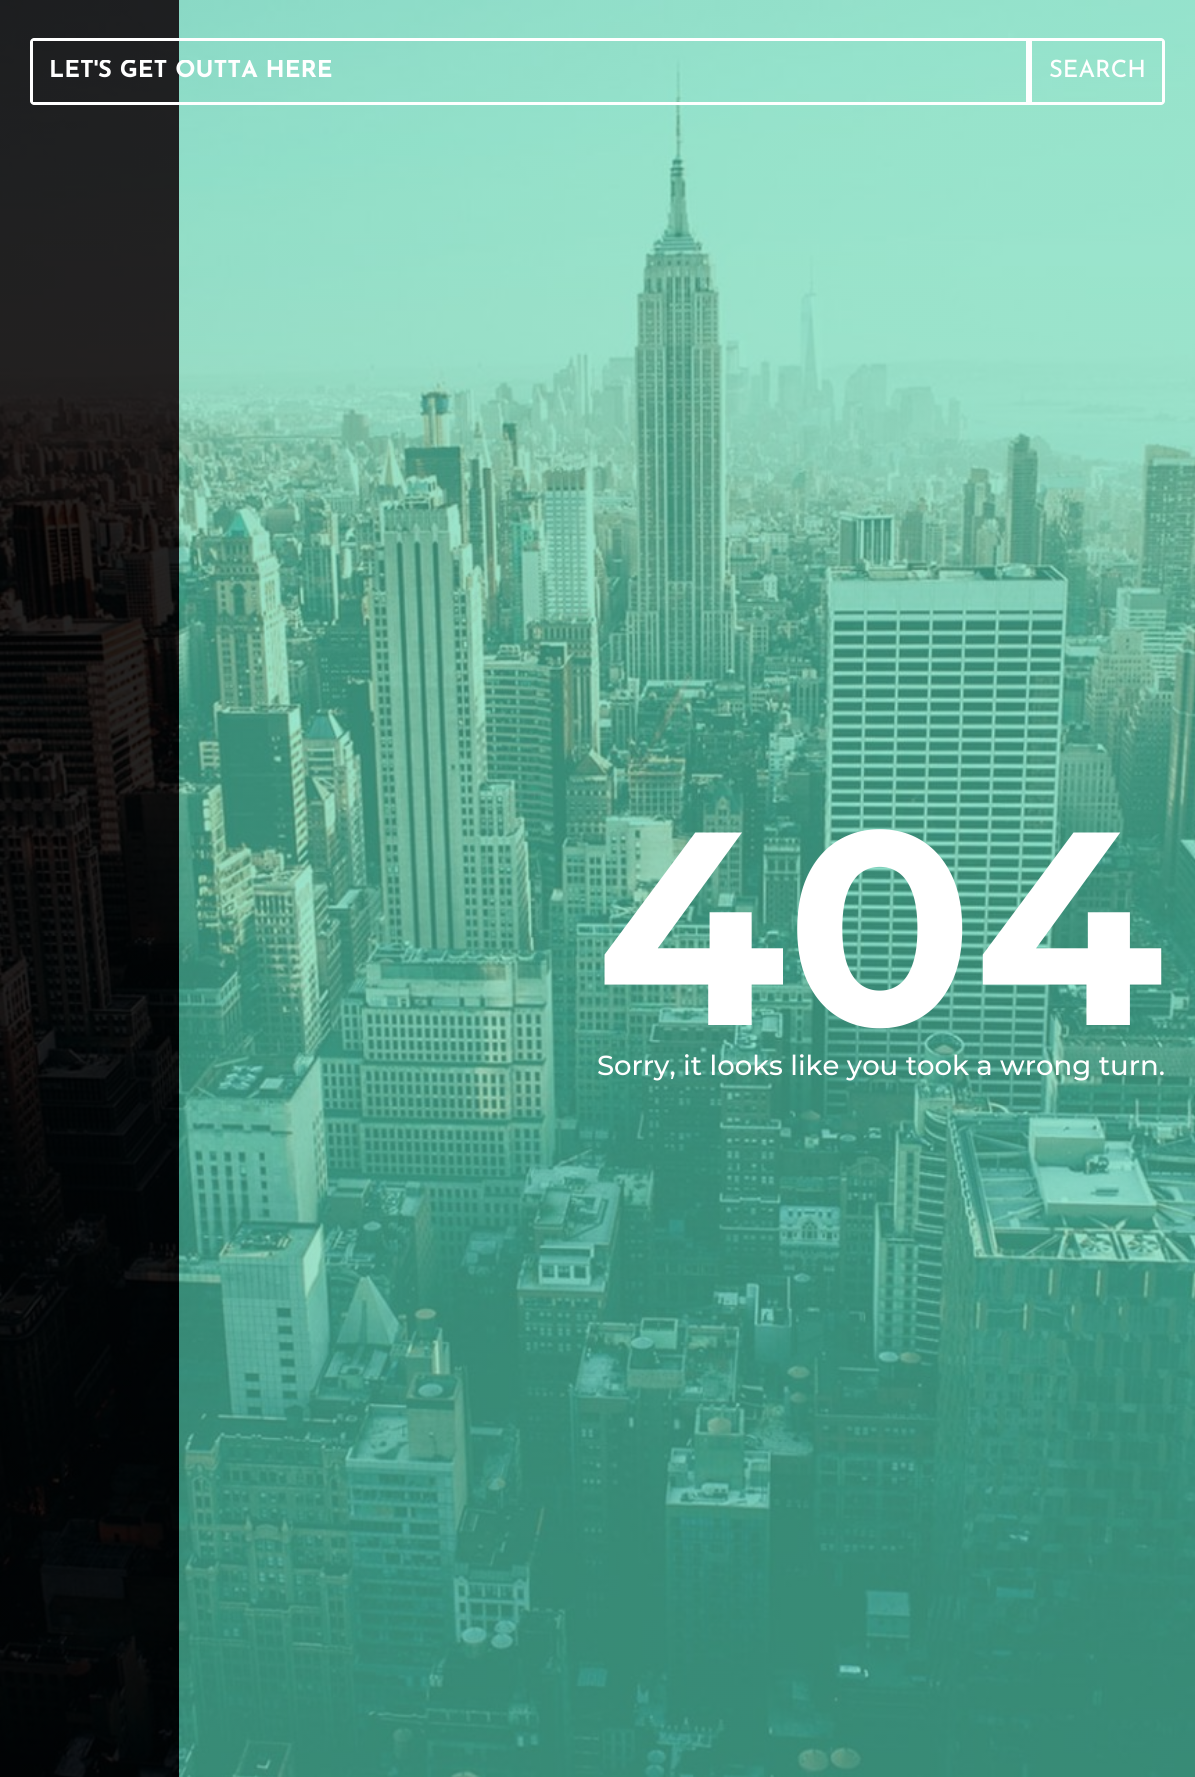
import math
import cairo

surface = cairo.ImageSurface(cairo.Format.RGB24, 1195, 1777)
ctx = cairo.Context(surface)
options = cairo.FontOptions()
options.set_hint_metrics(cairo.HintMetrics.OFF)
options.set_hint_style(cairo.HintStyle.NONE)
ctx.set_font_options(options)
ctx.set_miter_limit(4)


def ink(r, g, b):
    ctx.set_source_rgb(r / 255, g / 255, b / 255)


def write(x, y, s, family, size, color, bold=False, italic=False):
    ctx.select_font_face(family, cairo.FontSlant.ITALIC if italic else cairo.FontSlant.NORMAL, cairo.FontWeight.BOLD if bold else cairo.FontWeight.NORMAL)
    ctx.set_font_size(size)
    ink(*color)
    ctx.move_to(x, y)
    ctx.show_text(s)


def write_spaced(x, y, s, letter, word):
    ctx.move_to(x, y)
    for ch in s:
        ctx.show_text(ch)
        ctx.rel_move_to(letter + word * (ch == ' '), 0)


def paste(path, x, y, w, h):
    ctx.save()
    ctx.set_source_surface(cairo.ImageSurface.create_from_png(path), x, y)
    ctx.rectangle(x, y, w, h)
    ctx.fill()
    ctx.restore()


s1 = dict(family="Josefin Sans", size=23.75, color=(255, 255, 255), bold=True)
s2 = dict(family="Josefin Sans Medium", size=23.75, color=(255, 255, 255))
s3 = dict(family="Montserrat Medium", size=27.5, color=(255, 255, 255))

ink(255, 255, 255)
ctx.paint()
paste("pic1.png", 0, 0, 1195, 1777)
ink(255, 255, 255)
ctx.set_fill_rule(cairo.FillRule.EVEN_ODD)
ctx.new_path()
ctx.move_to(34, 38)
ctx.curve_to(32, 38, 30, 40, 30, 42)
ctx.line_to(30, 101)
ctx.curve_to(30, 103, 32, 105, 34, 105)
ctx.line_to(1029, 105)
ctx.line_to(1029, 38)
ctx.close_path()
ctx.move_to(33, 41)
ctx.line_to(33, 102)
ctx.line_to(1026, 102)
ctx.line_to(1026, 41)
ctx.close_path()
ctx.fill()
ctx.save()
ctx.set_fill_rule(cairo.FillRule.WINDING)
ctx.rectangle(49, 60, 961, 24)
ctx.clip()
write(49, 77, "LET'S GET OUTTA HERE", **s1)
ctx.restore()
ctx.new_path()
ctx.move_to(1029, 38)
ctx.line_to(1029, 105)
ctx.line_to(1161, 105)
ctx.curve_to(1163, 105, 1165, 103, 1165, 101)
ctx.line_to(1165, 42)
ctx.curve_to(1165, 40, 1163, 38, 1161, 38)
ctx.close_path()
ctx.move_to(1032, 41)
ctx.line_to(1032, 102)
ctx.line_to(1162, 102)
ctx.line_to(1162, 41)
ctx.close_path()
ctx.fill()
write(1049, 77, "SEARCH", **s2)
ctx.select_font_face("Montserrat", cairo.FontSlant.NORMAL, cairo.FontWeight.BOLD)
ctx.set_font_size(275)
write_spaced(596, 1025, "404", 1, 0)
write(597, 1075, "Sorry, it looks like you took a wrong turn.", **s3)
surface.write_to_png("screenshot.png")
